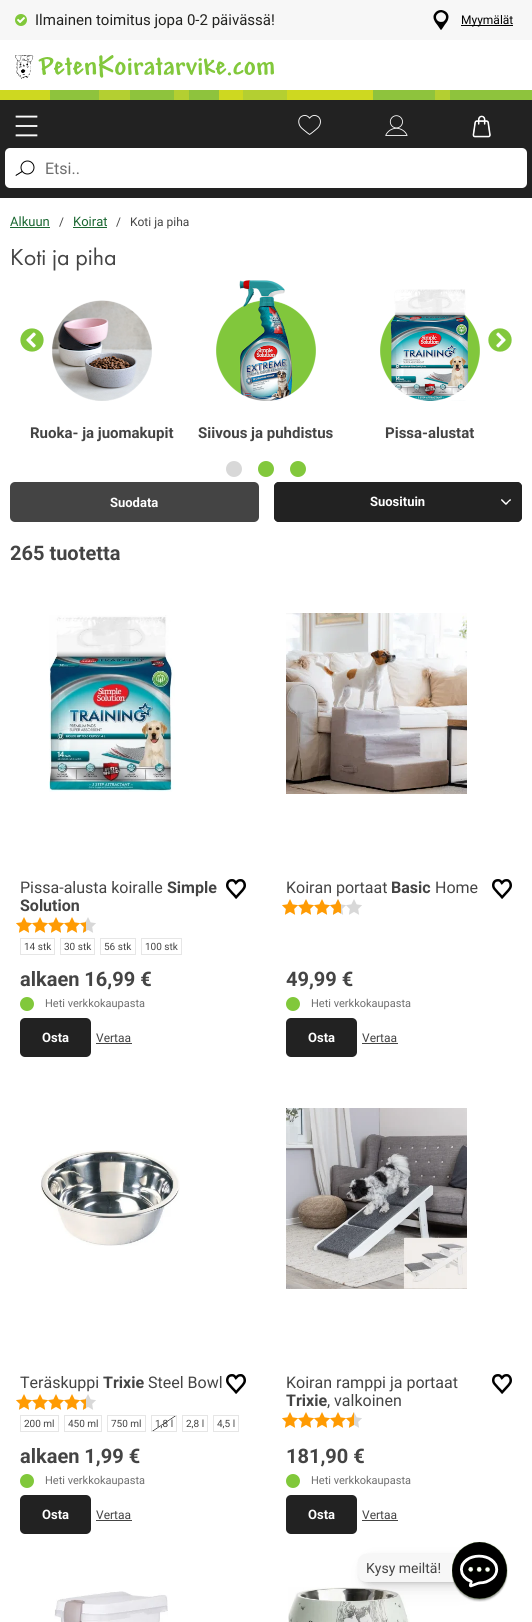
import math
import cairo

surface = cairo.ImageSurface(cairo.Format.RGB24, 532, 1622)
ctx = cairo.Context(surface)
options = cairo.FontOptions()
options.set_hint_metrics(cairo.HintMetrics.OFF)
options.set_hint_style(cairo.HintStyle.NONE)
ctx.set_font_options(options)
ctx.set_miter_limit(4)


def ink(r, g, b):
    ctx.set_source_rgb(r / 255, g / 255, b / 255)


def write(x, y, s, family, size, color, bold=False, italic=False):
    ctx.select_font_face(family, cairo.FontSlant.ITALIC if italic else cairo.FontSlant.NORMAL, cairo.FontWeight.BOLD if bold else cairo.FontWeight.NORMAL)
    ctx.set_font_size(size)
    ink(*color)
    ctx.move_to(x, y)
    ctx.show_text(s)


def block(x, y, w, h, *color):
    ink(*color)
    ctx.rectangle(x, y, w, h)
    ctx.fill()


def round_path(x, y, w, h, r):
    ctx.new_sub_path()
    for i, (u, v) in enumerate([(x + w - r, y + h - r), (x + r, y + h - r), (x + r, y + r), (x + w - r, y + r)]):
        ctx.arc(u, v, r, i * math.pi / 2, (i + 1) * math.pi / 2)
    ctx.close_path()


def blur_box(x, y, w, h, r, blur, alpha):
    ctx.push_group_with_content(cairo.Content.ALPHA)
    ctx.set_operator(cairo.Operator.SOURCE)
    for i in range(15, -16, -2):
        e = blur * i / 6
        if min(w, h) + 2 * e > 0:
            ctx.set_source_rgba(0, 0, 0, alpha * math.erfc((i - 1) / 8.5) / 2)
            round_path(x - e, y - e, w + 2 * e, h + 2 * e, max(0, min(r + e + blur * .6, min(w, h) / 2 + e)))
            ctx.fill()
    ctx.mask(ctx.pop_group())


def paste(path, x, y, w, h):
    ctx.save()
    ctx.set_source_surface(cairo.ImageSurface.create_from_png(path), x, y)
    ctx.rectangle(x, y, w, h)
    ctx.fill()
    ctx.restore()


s1 = dict(family="Roboto", size=15, color=(34, 34, 32))
s2 = dict(family="Roboto", size=12, color=(0, 0, 0))
s3 = dict(family="Roboto", size=16, color=(110, 110, 110))
s4 = dict(family="Roboto", size=13, color=(27, 104, 50))
s5 = dict(family="Roboto", size=12, color=(68, 68, 68))
s6 = dict(family="Futura PT", size=24, color=(68, 68, 68))
s7 = dict(family="Roboto", size=15, color=(68, 68, 68), bold=True)
s8 = dict(family="Roboto", size=13, color=(255, 255, 255), bold=True)
s9 = dict(family="Roboto", size=20, color=(68, 68, 68), bold=True)
s10 = dict(family="Roboto", size=16, color=(68, 68, 68))
s11 = dict(family="Roboto", size=16, color=(68, 68, 68), bold=True)
s12 = dict(family="Roboto", size=10, color=(68, 68, 68))
s13 = dict(family="Roboto", size=11, color=(110, 110, 110))
s14 = dict(family="Roboto", size=14, color=(68, 68, 68))

ink(255, 255, 255)
ctx.paint()
block(0, 0, 532, 40, 247, 247, 247)
paste("pic1.png", 15, 14, 12, 12)
write(35, 25, "Ilmainen toimitus jopa 0-2 päivässä!", **s1)
paste("pic2.png", 433, 10, 16, 20)
block(461, 25, 52, 1, 0, 0, 0)
write(461, 24, "Myymälät", **s2)
paste("pic3.png", 15, 55, 259, 24)
block(0, 100, 532, 98, 34, 34, 34)
paste("pic4.png", 0, 90, 532, 10)
paste("pic5.png", 15, 115, 23, 22)
paste("pic6.png", 298, 115, 23, 20)
paste("pic7.png", 385, 115, 23, 21)
paste("pic8.png", 472, 115, 19, 23)
ink(255, 255, 255)
round_path(5, 148, 522, 40, 5)
ctx.fill()
paste("pic9.png", 15, 160, 20, 16)
write(45, 174, "Etsi..", **s3)
write(10, 226, "Alkuun", **s4)
block(10, 227, 40, 1, 27, 104, 50)
write(59, 226, "/", **s5)
write(73, 226, "Koirat", **s4)
block(73, 227, 34, 1, 27, 104, 50)
write(116, 226, "/", **s5)
write(130, 226, "Koti ja piha", **s5)
write(10, 265, "Koti ja piha", **s6)
paste("pic10.png", 20, 328, 24, 24)
paste("pic11.png", 488, 328, 24, 24)
paste("pic12.png", 52, 300, 100, 101)
write(30, 438, "Ruoka- ja juomakupit", **s7)
paste("pic13.png", 216, 280, 100, 121)
write(198, 438, "Siivous ja puhdistus", **s7)
paste("pic14.png", 380, 289, 100, 112)
write(385, 438, "Pissa-alustat", **s7)
ink(216, 216, 216)
ctx.new_path()
ctx.arc(234, 469, 8, 0, 2 * math.pi)
ctx.fill()
ink(130, 200, 60)
ctx.arc(266, 469, 8, 0, 2 * math.pi)
ctx.fill()
ctx.arc(298, 469, 8, 0, 2 * math.pi)
ctx.fill()
ink(68, 68, 68)
round_path(10, 482, 249, 40, 5)
ctx.fill()
write(110, 507, "Suodata", **s8)
ink(34, 34, 34)
round_path(274, 482, 248, 40, 5)
ctx.fill()
paste("pic15.png", 501, 499, 10, 6)
round_path(274.5, 482.5, 247, 39, 4.5)
ctx.set_line_width(1)
ctx.stroke()
write(370, 506, "Suosituin", **s8)
ctx.new_path()
ctx.move_to(509, 502)
ctx.line_to(513, 506)
ctx.line_to(517, 502)
ink(34, 34, 34)
ctx.set_line_width(2)
ctx.stroke()
write(10, 560, "265 tuotetta", **s9)
paste("pic16.png", 49, 615, 126, 177)
write(20, 893, "Pissa-alusta koiralle", **s10)
write(167, 893, "Simple", **s11)
write(20, 911, "Solution", **s11)
paste("pic17.png", 226, 879, 20, 20)
paste("pic18.png", 16, 917, 16, 16)
paste("pic18.png", 32, 917, 16, 16)
paste("pic18.png", 48, 917, 16, 16)
paste("pic18.png", 64, 917, 16, 16)
paste("pic19.png", 80, 917, 16, 16)
paste("pic20.png", 80, 921, 6, 12)
ctx.rectangle(20.5, 938.5, 34, 16)
ink(230, 230, 230)
ctx.set_line_width(1)
ctx.stroke()
write(24, 950, "14 stk", **s12)
ctx.rectangle(60.5, 938.5, 34, 16)
ink(230, 230, 230)
ctx.stroke()
write(64, 950, "30 stk", **s12)
ctx.rectangle(100.5, 938.5, 35, 16)
ink(230, 230, 230)
ctx.stroke()
write(104, 950, "56 stk", **s12)
ctx.rectangle(141.5, 938.5, 40, 16)
ink(230, 230, 230)
ctx.stroke()
write(145, 950, "100 stk", **s12)
write(20, 986, "alkaen 16,99 €", **s9)
ink(129, 200, 59)
ctx.new_path()
ctx.arc(27, 1004, 7, 0, 2 * math.pi)
ctx.fill()
write(45, 1007, "Heti verkkokaupasta", **s13)
ink(34, 34, 34)
round_path(20, 1018, 71, 39, 5)
ctx.fill()
write(42, 1042, "Osta", **s8)
write(96, 1042, "Vertaa", **s5)
block(96, 1043, 36, 1, 68, 68, 68)
paste("pic21.png", 286, 613, 181, 181)
write(286, 893, "Koiran portaat", **s10)
write(391, 893, "Basic", **s11)
write(435, 893, "Home", **s10)
paste("pic17.png", 492, 879, 20, 20)
paste("pic18.png", 282, 899, 16, 16)
paste("pic18.png", 298, 899, 16, 16)
paste("pic18.png", 314, 899, 16, 16)
paste("pic19.png", 330, 899, 16, 16)
paste("pic22.png", 330, 899, 11, 16)
paste("pic19.png", 346, 899, 16, 16)
write(286, 986, "49,99 €", **s9)
ink(129, 200, 59)
ctx.new_path()
ctx.arc(293, 1004, 7, 0, 2 * math.pi)
ctx.fill()
write(311, 1007, "Heti verkkokaupasta", **s13)
ink(34, 34, 34)
round_path(286, 1018, 71, 39, 5)
ctx.fill()
write(308, 1042, "Osta", **s8)
write(362, 1042, "Vertaa", **s5)
block(362, 1043, 36, 1, 68, 68, 68)
paste("pic23.png", 41, 1150, 139, 96)
write(20, 1388, "Teräskuppi", **s10)
write(103, 1388, "Trixie", **s11)
write(148, 1388, "Steel Bowl", **s10)
paste("pic17.png", 226, 1374, 20, 20)
paste("pic18.png", 16, 1394, 16, 16)
paste("pic18.png", 32, 1394, 16, 16)
paste("pic18.png", 48, 1394, 16, 16)
paste("pic18.png", 64, 1394, 16, 16)
paste("pic19.png", 80, 1394, 16, 16)
paste("pic20.png", 80, 1398, 6, 12)
ctx.rectangle(20.5, 1415.5, 38, 16)
ink(230, 230, 230)
ctx.stroke()
write(24, 1427, "200 ml", **s12)
ctx.rectangle(64.5, 1415.5, 37, 16)
ink(230, 230, 230)
ctx.stroke()
write(68, 1427, "450 ml", **s12)
ctx.rectangle(107.5, 1415.5, 38, 16)
ink(230, 230, 230)
ctx.stroke()
write(111, 1427, "750 ml", **s12)
gradient = cairo.LinearGradient(171, 1434, 157, 1413)
gradient.add_color_stop_rgba(0, 1, 1, 1, 1)
gradient.add_color_stop_rgba(0.47, 1, 1, 1, 1)
gradient.add_color_stop_rgba(0.5, 0.314, 0.314, 0.314, 1)
gradient.add_color_stop_rgba(0.53, 1, 1, 1, 1)
gradient.add_color_stop_rgba(1, 1, 1, 1, 1)
ctx.set_source(gradient)
ctx.rectangle(152, 1416, 24, 15)
ctx.fill()
ctx.rectangle(151.5, 1415.5, 25, 16)
ink(230, 230, 230)
ctx.stroke()
write(155, 1427, "1,8 l", **s12)
ctx.rectangle(182.5, 1415.5, 25, 16)
ink(230, 230, 230)
ctx.stroke()
write(186, 1427, "2,8 l", **s12)
ctx.rectangle(213.5, 1415.5, 25, 16)
ink(230, 230, 230)
ctx.stroke()
write(217, 1427, "4,5 l", **s12)
write(20, 1463, "alkaen 1,99 €", **s9)
ink(129, 200, 59)
ctx.new_path()
ctx.arc(27, 1481, 7, 0, 2 * math.pi)
ctx.fill()
write(45, 1484, "Heti verkkokaupasta", **s13)
ink(34, 34, 34)
round_path(20, 1495, 71, 39, 5)
ctx.fill()
write(42, 1519, "Osta", **s8)
write(96, 1519, "Vertaa", **s5)
block(96, 1520, 36, 1, 68, 68, 68)
paste("pic24.png", 286, 1108, 181, 181)
write(286, 1388, "Koiran ramppi ja portaat", **s10)
write(286, 1406, "Trixie", **s11)
write(327, 1406, ", valkoinen", **s10)
paste("pic17.png", 492, 1374, 20, 20)
paste("pic18.png", 282, 1412, 16, 16)
paste("pic18.png", 298, 1412, 16, 16)
paste("pic18.png", 314, 1412, 16, 16)
paste("pic18.png", 330, 1412, 16, 16)
paste("pic19.png", 346, 1412, 16, 16)
paste("pic25.png", 346, 1412, 8, 16)
write(286, 1463, "181,90 €", **s9)
ink(129, 200, 59)
ctx.new_path()
ctx.arc(293, 1481, 7, 0, 2 * math.pi)
ctx.fill()
write(311, 1484, "Heti verkkokaupasta", **s13)
ink(34, 34, 34)
round_path(286, 1495, 71, 39, 5)
ctx.fill()
write(308, 1519, "Osta", **s8)
write(362, 1519, "Vertaa", **s5)
block(362, 1520, 36, 1, 68, 68, 68)
paste("pic26.png", 54, 1591, 114, 31)
paste("pic27.png", 288, 1587, 122, 35)
ink(0, 0, 0)
blur_box(367, 1563, 105, 26, 7, 11, 0.06)
blur_box(364, 1560, 105, 26, 7, 6, 0.07)
blur_box(362, 1558, 105, 26, 7, 3, 0.09)
blur_box(360, 1556, 105, 26, 7, 2, 0.11)
ink(247, 247, 247)
ctx.new_path()
ctx.move_to(366, 1554)
ctx.line_to(465, 1554)
ctx.line_to(465, 1582)
ctx.line_to(366, 1582)
ctx.curve_to(361.5, 1582, 358, 1578.5, 358, 1574)
ctx.line_to(358, 1562)
ctx.curve_to(358, 1557.5, 361.5, 1554, 366, 1554)
ctx.close_path()
ctx.fill()
write(366, 1573, "Kysy meiltä!", **s14)
paste("pic28.png", 452, 1542, 56, 60)
surface.write_to_png("screenshot.png")
